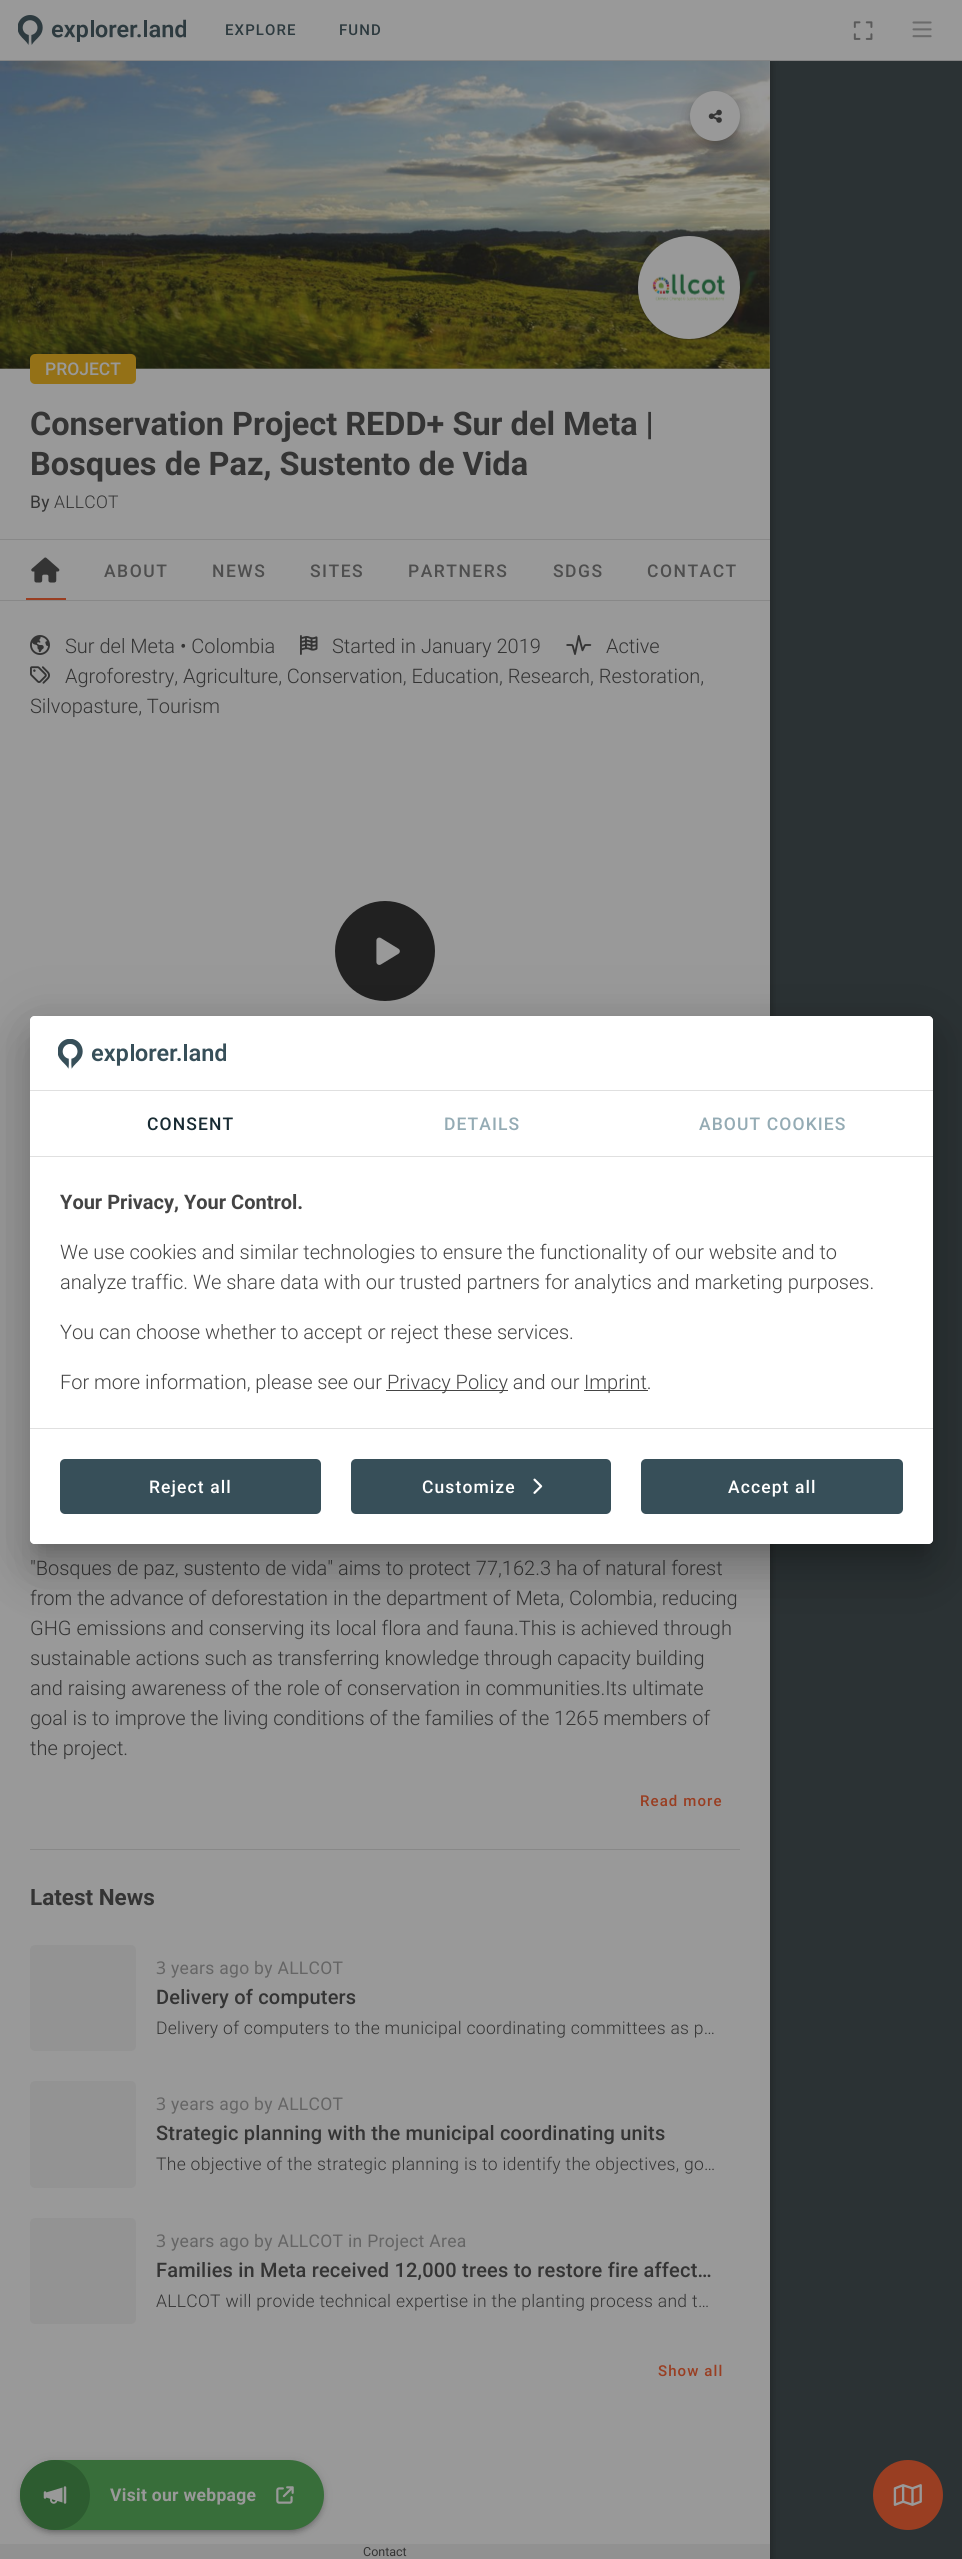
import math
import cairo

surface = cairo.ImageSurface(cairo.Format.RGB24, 962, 2559)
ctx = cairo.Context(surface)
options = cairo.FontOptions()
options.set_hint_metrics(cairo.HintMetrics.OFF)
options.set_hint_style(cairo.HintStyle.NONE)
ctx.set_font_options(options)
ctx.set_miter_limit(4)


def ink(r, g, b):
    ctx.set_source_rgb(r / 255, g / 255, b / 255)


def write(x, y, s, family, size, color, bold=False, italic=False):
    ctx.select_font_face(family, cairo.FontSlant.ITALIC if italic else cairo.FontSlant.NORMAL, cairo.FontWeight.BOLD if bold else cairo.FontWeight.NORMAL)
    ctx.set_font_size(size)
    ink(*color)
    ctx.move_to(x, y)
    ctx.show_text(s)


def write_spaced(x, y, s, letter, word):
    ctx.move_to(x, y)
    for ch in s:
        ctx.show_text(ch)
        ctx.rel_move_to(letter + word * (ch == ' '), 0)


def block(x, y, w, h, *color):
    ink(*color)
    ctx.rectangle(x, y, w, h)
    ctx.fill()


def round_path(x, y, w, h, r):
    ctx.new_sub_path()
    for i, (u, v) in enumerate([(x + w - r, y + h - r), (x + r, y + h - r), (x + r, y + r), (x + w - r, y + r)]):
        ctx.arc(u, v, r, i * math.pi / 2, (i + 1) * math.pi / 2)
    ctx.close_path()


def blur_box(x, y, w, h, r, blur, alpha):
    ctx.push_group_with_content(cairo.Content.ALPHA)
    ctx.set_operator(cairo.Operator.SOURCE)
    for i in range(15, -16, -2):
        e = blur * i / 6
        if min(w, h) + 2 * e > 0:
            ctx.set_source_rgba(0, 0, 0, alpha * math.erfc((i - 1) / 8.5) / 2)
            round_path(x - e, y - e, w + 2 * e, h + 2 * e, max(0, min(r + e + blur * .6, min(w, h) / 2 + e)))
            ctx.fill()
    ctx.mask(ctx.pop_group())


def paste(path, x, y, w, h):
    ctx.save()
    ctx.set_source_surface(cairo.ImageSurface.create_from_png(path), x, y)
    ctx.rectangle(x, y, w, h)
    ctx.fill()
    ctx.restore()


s1 = dict(family="Roboto Medium", size=17.5, color=(153, 153, 153))
s2 = dict(family="Roboto", size=32.5, color=(52, 52, 52), bold=True)
s3 = dict(family="Roboto Light", size=20, color=(52, 52, 52))
s4 = dict(family="Roboto", size=22.5, color=(52, 52, 52), bold=True)
s5 = dict(family="Roboto", size=12.5, color=(52, 52, 52))
s6 = dict(family="Roboto", size=20, color=(68, 68, 68), bold=True)
s7 = dict(family="Roboto Light", size=20, color=(68, 68, 68))

ink(43, 50, 52)
ctx.paint()
ink(15, 15, 15)
blur_box(0, 63, 770, 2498, 0, 5, 0.5)
block(0, 61, 770, 308, 147, 147, 147)
paste("pic5.png", 0, 61, 770, 308)
ink(15, 15, 15)
blur_box(690, 93, 50, 50, 25, 11, 0.12)
block(0, 60, 962, 1, 132, 132, 132)
block(0, 0, 962, 60, 153, 153, 153)
paste("pic1.png", 18, 15, 168, 30)
ctx.select_font_face("Roboto Medium")
ctx.set_font_size(15)
ink(45, 58, 63)
write_spaced(225, 35, "EXPLORE", 1.1, 0)
write_spaced(339, 35, "FUND", 1.1, 0)
paste("pic2.png", 853, 21, 20, 19)
paste("pic3.png", 912, 21, 20, 17)
block(0, 369, 770, 2175, 153, 153, 153)
ink(15, 15, 15)
blur_box(690, 99, 50, 50, 25, 6, 0.14)
blur_box(691, 96, 48, 48, 24, 3, 0.2)
ink(153, 153, 153)
ctx.arc(715, 116, 25, 0, 2 * math.pi)
ctx.fill()
paste("pic4.png", 708, 109, 14, 14)
ink(15, 15, 15)
blur_box(638, 238, 102, 102, 51, 0.5, 0.14)
blur_box(639, 240, 100, 100, 50, 0.5, 0.2)
ink(153, 153, 153)
round_path(638, 236, 102, 103, 51)
ctx.fill()
paste("pic6.png", 652, 273, 73, 28)
ink(148, 113, 23)
round_path(30, 354, 106, 30, 5)
ctx.fill()
write(45, 375, "PROJECT", **s1)
block(0, 539, 770, 1, 136, 136, 136)
write(30, 435, "Conservation Project REDD+ Sur del Meta |", **s2)
write(30, 475, "Bosques de Paz, Sustento de Vida", **s2)
ctx.select_font_face("Roboto")
ctx.set_font_size(17.5)
write_spaced(30, 508, "By", 0.3, 0)
ctx.select_font_face("Roboto Light")
write_spaced(54, 508, "ALLCOT", 0.3, 0)
block(0, 600, 770, 1, 136, 136, 136)
paste("pic7.png", 31, 557, 29, 26)
ctx.select_font_face("Roboto Medium")
ink(78, 78, 78)
write_spaced(104, 577, "ABOUT", 1.5, 0)
write_spaced(212, 577, "NEWS", 1.5, 0)
write_spaced(310, 577, "SITES", 1.5, 0)
write_spaced(408, 577, "PARTNERS", 1.5, 0)
write_spaced(553, 577, "SDGS", 1.5, 0)
write_spaced(647, 577, "CONTACT", 1.5, 0)
block(26, 598, 40, 2, 153, 62, 34)
paste("pic8.png", 30, 635, 20, 20)
write(65, 653, "Sur del Meta • Colombia", **s3)
paste("pic9.png", 300, 635, 18, 20)
write(332, 653, "Started in January 2019", **s3)
paste("pic10.png", 566, 635, 26, 20)
write(606, 653, "Active", **s3)
paste("pic11.png", 30, 666, 20, 18)
write(65, 683, "Agroforestry, Agriculture, Conservation, Education, Research, Restoration,", **s3)
write(30, 713, "Silvopasture, Tourism", **s3)
ink(33, 33, 33)
ctx.new_path()
ctx.move_to(385, 1001)
ctx.curve_to(413, 1001, 435, 979, 435, 951)
ctx.curve_to(435, 924, 413, 901, 385, 901)
ctx.curve_to(357, 901, 335, 924, 335, 951)
ctx.curve_to(335, 979, 357, 1001, 385, 1001)
ctx.close_path()
ctx.fill()
paste("pic12.png", 376, 937, 24, 28)
write(30, 1575, "\"Bosques de paz, sustento de vida\" aims to protect 77,162.3 ha of natural forest", **s3)
write(30, 1605, "from the advance of deforestation in the department of Meta, Colombia, reducing", **s3)
write(30, 1635, "GHG emissions and conserving its local flora and fauna.This is achieved through", **s3)
write(30, 1665, "sustainable actions such as transferring knowledge through capacity building", **s3)
write(30, 1695, "and raising awareness of the role of conservation in communities.Its ultimate", **s3)
write(30, 1725, "goal is to improve the living conditions of the families of the 1265 members of", **s3)
write(30, 1755, "the project.", **s3)
ctx.select_font_face("Roboto Medium")
ctx.set_font_size(15)
ink(153, 62, 34)
write_spaced(640, 1806, "Read more", 1.1, 0)
block(30, 1849, 710, 1, 136, 136, 136)
write(30, 1905, "Latest News", **s4)
ink(147, 147, 147)
round_path(30, 1945, 106, 106, 5)
ctx.fill()
ctx.select_font_face("Noto Sans")
ctx.set_font_size(17.5)
ink(101, 101, 101)
write_spaced(156, 1974, "3", 0.3, 0)
ctx.select_font_face("Roboto")
write_spaced(171, 1974, "years ago by ALLCOT", 0.3, 0)
ctx.select_font_face("Roboto Medium")
ctx.set_font_size(20)
ink(52, 52, 52)
write_spaced(156, 2004, "Delivery of computers", 0.2, 0)
ctx.select_font_face("Roboto Light")
ctx.set_font_size(17.5)
write_spaced(156, 2034, "Delivery of computers to the municipal coordinating committees as p…", 0.3, 0)
ink(147, 147, 147)
round_path(30, 2081, 106, 107, 5)
ctx.fill()
ctx.select_font_face("Noto Sans")
ink(101, 101, 101)
write_spaced(156, 2110, "3", 0.3, 0)
ctx.select_font_face("Roboto")
write_spaced(171, 2110, "years ago by ALLCOT", 0.3, 0)
ctx.select_font_face("Roboto Medium")
ctx.set_font_size(20)
ink(52, 52, 52)
write_spaced(156, 2140, "Strategic planning with the municipal coordinating units", 0.2, 0)
ctx.select_font_face("Roboto Light")
ctx.set_font_size(17.5)
write_spaced(156, 2170, "The objective of the strategic planning is to identify the objectives, go…", 0.3, 0)
ink(147, 147, 147)
round_path(30, 2218, 106, 106, 5)
ctx.fill()
ctx.select_font_face("Noto Sans")
ink(101, 101, 101)
write_spaced(156, 2247, "3", 0.3, 0)
ctx.select_font_face("Roboto")
write_spaced(171, 2247, "years ago by ALLCOT in Project Area", 0.3, 0)
ctx.select_font_face("Roboto Medium")
ctx.set_font_size(20)
ink(52, 52, 52)
write_spaced(156, 2277, "Families in Meta received 12,000 trees to restore fire affect…", 0.2, 0)
ctx.select_font_face("Roboto Light")
ctx.set_font_size(17.5)
write_spaced(156, 2307, "ALLCOT will provide technical expertise in the planting process and t…", 0.3, 0)
ctx.select_font_face("Roboto Medium")
ctx.set_font_size(15)
ink(153, 62, 34)
write_spaced(658, 2376, "Show all", 1.1, 0)
block(0, 2544, 770, 15, 145, 145, 145)
ink(15, 15, 15)
blur_box(20, 2461, 304, 70, 35, 5, 0.12)
blur_box(20, 2464, 304, 70, 35, 2.5, 0.14)
blur_box(23, 2466, 298, 65, 32.5, 2, 0.2)
ink(56, 110, 58)
round_path(20, 2460, 304, 70, 35)
ctx.fill()
ink(45, 92, 48)
ctx.arc(55, 2495, 35, 0, 2 * math.pi)
ctx.fill()
paste("pic13.png", 43, 2486, 24, 18)
ctx.select_font_face("Roboto", cairo.FontSlant.NORMAL, cairo.FontWeight.BOLD)
ctx.set_font_size(17.5)
ink(153, 153, 153)
write_spaced(110, 2501, "Visit our webpage", 0.3, 0)
paste("pic14.png", 276, 2486, 18, 18)
write(363, 2556, "Contact", **s5)
ink(153, 62, 34)
ctx.new_path()
ctx.arc(908, 2495, 35, 0, 2 * math.pi)
ctx.fill()
paste("pic15.png", 893, 2484, 29, 22)
ink(0, 0, 0)
blur_box(20, 1018, 923, 547, 15, 29, 0.12)
blur_box(26, 1043, 910, 535, 9, 24, 0.14)
blur_box(39, 1039, 885, 510, 0, 9.5, 0.2)
ink(255, 255, 255)
round_path(30, 1016, 903, 528, 5)
ctx.fill()
ctx.new_path()
ctx.move_to(35, 1016)
ctx.line_to(928, 1016)
ctx.curve_to(931, 1016, 933, 1018, 933, 1021)
ctx.line_to(933, 1158)
ctx.line_to(30, 1158)
ctx.line_to(30, 1021)
ctx.curve_to(30, 1018, 32, 1016, 35, 1016)
ctx.close_path()
ctx.fill()
block(30, 1156, 903, 1, 224, 224, 224)
block(30, 1090, 903, 1, 224, 224, 224)
paste("pic16.png", 58, 1039, 168, 30)
ctx.select_font_face("Roboto Medium")
ctx.set_font_size(17.5)
ink(24, 43, 51)
write_spaced(147, 1130, "CONSENT", 1.1, 0)
ink(148, 171, 180)
write_spaced(444, 1130, "DETAILS", 1.1, 0)
write_spaced(699, 1130, "ABOUT COOKIES", 1.1, 0)
write(60, 1209, "Your Privacy, Your Control.", **s6)
write(60, 1259, "We use cookies and similar technologies to ensure the functionality of our website and to", **s7)
write(60, 1289, "analyze traffic. We share data with our trusted partners for analytics and marketing purposes.", **s7)
write(60, 1339, "You can choose whether to accept or reject these services.", **s7)
write(60, 1389, "For more information, please see our", **s7)
block(386, 1390, 122, 1, 68, 68, 68)
write(387, 1389, "Privacy Policy and our", **s7)
block(584, 1390, 64, 1, 68, 68, 68)
write(584, 1389, "Imprint.", **s7)
ink(255, 255, 255)
ctx.new_path()
ctx.move_to(30, 1428)
ctx.line_to(933, 1428)
ctx.line_to(933, 1539)
ctx.curve_to(933, 1542, 931, 1544, 928, 1544)
ctx.line_to(35, 1544)
ctx.curve_to(32, 1544, 30, 1542, 30, 1539)
ctx.close_path()
ctx.fill()
block(30, 1428, 903, 1, 224, 224, 224)
ink(55, 79, 89)
round_path(60, 1459, 261, 55, 5)
ctx.fill()
ctx.select_font_face("Roboto Medium")
ctx.set_font_size(17.5)
ink(255, 255, 255)
write_spaced(149, 1493, "Reject all", 1.1, 0)
ink(55, 79, 89)
round_path(351, 1459, 260, 55, 5)
ctx.fill()
ink(255, 255, 255)
write_spaced(422, 1493, "Customize", 1.1, 0)
paste("pic17.png", 533, 1478, 10, 16)
ink(55, 79, 89)
round_path(641, 1459, 262, 55, 5)
ctx.fill()
ink(255, 255, 255)
write_spaced(728, 1493, "Accept all", 1.1, 0)
surface.write_to_png("screenshot.png")
